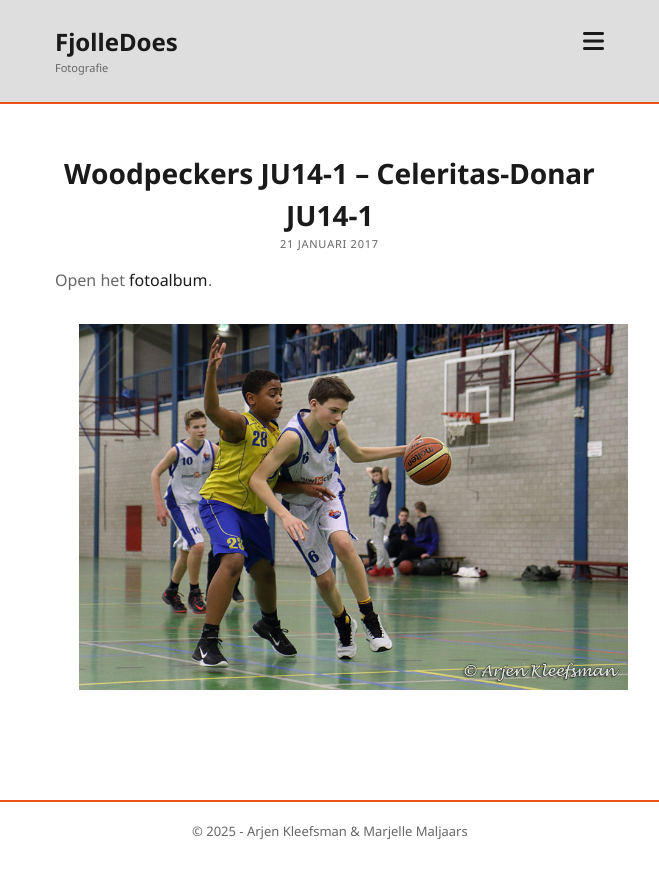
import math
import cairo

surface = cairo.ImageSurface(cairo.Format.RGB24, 659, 876)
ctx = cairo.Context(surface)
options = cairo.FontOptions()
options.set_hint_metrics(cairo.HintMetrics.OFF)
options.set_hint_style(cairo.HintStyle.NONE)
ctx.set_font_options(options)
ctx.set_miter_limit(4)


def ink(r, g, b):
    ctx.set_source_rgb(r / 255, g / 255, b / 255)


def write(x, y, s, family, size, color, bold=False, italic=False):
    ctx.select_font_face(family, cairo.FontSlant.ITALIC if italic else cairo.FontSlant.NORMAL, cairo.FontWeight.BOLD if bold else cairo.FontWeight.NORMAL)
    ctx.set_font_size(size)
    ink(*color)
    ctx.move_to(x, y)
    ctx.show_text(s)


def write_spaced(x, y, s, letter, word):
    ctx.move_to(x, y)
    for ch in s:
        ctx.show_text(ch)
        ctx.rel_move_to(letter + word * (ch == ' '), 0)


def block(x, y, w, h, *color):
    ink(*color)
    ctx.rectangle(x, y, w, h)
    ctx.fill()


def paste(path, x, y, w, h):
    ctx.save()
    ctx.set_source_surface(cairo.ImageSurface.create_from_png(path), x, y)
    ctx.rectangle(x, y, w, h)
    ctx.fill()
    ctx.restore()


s1 = dict(family="Noto Sans", size=24, color=(26, 26, 26), bold=True)
s2 = dict(family="Noto Sans", size=11, color=(102, 102, 102))
s3 = dict(family="Noto Sans", size=28, color=(26, 26, 26), bold=True)
s4 = dict(family="Noto Sans", size=16, color=(102, 102, 102))
s5 = dict(family="Noto Sans", size=16, color=(26, 26, 26))
s6 = dict(family="Noto Sans", size=13, color=(102, 102, 102))

ink(255, 255, 255)
ctx.paint()
block(0, 0, 659, 102, 222, 222, 222)
block(0, 102, 659, 2, 236, 81, 21)
write(55, 51, "FjolleDoes", **s1)
write(55, 72, "Fotografie", **s2)
paste("pic1.png", 583, 32, 21, 18)
write(64, 184, "Woodpeckers JU14-1 – Celeritas-Donar", **s3)
write(286, 226, "JU14-1", **s3)
ctx.select_font_face("Noto Sans")
ctx.set_font_size(11)
ink(102, 102, 102)
write_spaced(280, 248, "21 JANUARI 2017", 0.75, 0)
write(55, 286, "Open het", **s4)
write(129, 286, "fotoalbum", **s5)
write(208, 286, ".", **s4)
paste("pic2.png", 79, 324, 549, 366)
block(0, 800, 659, 2, 236, 81, 21)
write(192, 836, "© 2025 - Arjen Kleefsman & Marjelle Maljaars", **s6)
surface.write_to_png("screenshot.png")
